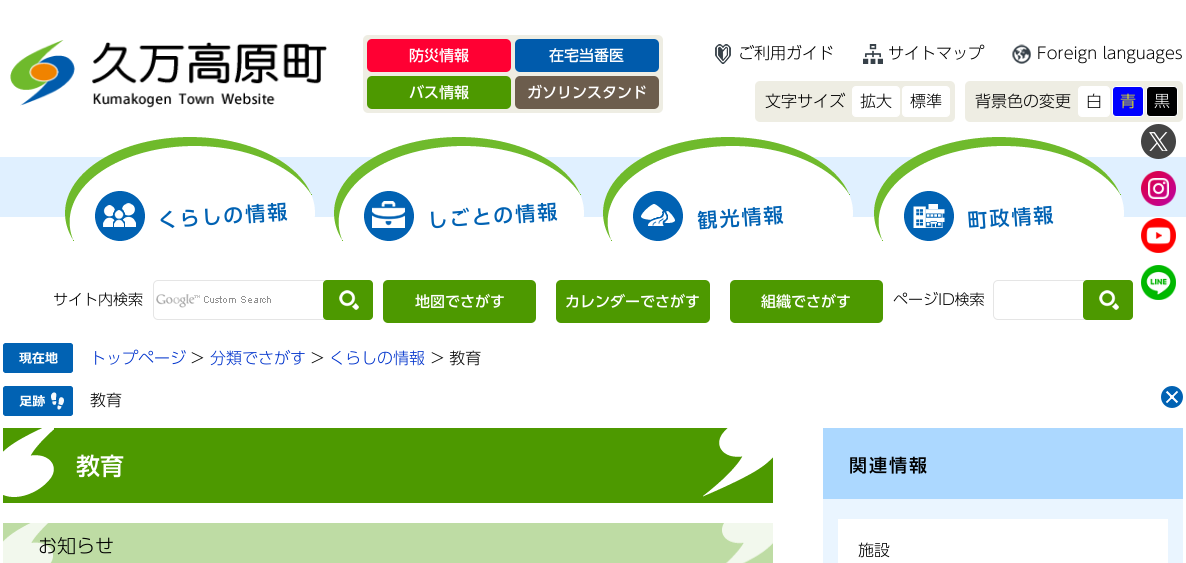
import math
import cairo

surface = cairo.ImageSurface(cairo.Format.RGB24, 1186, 563)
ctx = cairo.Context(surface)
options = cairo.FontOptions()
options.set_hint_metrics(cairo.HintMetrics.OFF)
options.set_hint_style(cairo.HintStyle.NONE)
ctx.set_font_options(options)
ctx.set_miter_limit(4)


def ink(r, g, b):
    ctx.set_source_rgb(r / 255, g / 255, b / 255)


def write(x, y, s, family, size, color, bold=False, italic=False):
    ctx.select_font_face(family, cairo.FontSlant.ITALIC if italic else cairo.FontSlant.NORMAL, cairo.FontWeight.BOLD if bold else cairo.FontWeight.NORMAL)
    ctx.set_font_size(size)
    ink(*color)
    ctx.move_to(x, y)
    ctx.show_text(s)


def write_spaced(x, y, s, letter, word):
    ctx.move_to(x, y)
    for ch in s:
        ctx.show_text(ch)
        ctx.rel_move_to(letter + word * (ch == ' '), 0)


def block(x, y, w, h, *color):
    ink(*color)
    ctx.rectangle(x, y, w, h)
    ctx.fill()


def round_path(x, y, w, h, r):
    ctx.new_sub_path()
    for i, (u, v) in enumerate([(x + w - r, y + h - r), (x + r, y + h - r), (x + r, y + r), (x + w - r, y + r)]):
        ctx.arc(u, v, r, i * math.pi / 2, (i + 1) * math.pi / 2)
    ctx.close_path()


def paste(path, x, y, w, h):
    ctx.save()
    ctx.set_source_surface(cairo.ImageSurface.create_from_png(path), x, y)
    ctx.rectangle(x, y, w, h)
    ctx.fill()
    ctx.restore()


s1 = dict(family="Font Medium", size=15, color=(255, 255, 255))
s2 = dict(family="Font Light", size=16, color=(0, 0, 0))
s3 = dict(family="Font Light", size=16, color=(255, 255, 0))
s4 = dict(family="Font Light", size=16, color=(255, 255, 255))
s5 = dict(family="Font Light", size=15, color=(0, 0, 0))
s6 = dict(family="Font Light", size=16, color=(0, 51, 204))
s7 = dict(family="Font Medium", size=24, color=(255, 255, 255))
s8 = dict(family="Font Light", size=19, color=(0, 0, 0))

ink(255, 255, 255)
ctx.paint()
paste("pic1.png", 10, 40, 317, 68)
ink(238, 237, 227)
round_path(363, 35, 300, 78, 5)
ctx.fill()
ink(255, 0, 51)
round_path(367, 39, 144, 33, 5)
ctx.fill()
write(409, 61, "防災情報", **s1)
ink(0, 91, 172)
round_path(515, 39, 144, 33, 5)
ctx.fill()
write(549, 61, "在宅当番医", **s1)
ink(77, 153, 0)
round_path(367, 76, 144, 33, 5)
ctx.fill()
write(409, 98, "バス情報", **s1)
ink(108, 93, 77)
round_path(515, 76, 144, 33, 5)
ctx.fill()
write(527, 98, "ガソリンスタンド", **s1)
paste("pic2.png", 715, 44, 16, 20)
write(738, 59, "ご利用ガイド", **s2)
paste("pic3.png", 863, 44, 20, 20)
write(888, 59, "サイトマップ", **s2)
paste("pic4.png", 1012, 44, 19, 20)
write(1037, 59, "Foreign languages", **s2)
ink(238, 237, 227)
round_path(755, 81, 200, 41, 5)
ctx.fill()
write(765, 107, "文字サイズ", **s2)
ink(255, 255, 255)
round_path(852.5, 86.5, 47, 30, 3.5)
ctx.fill_preserve()
ctx.set_line_width(1)
ctx.stroke()
write(860, 107, "拡大", **s2)
ink(255, 255, 255)
round_path(902.5, 86.5, 47, 30, 3.5)
ctx.fill_preserve()
ctx.stroke()
write(910, 107, "標準", **s2)
ink(238, 237, 227)
round_path(965, 81, 218, 41, 5)
ctx.fill()
write(975, 107, "背景色の変更", **s2)
ink(255, 255, 255)
round_path(1078.5, 86.5, 31, 30, 3.5)
ctx.fill_preserve()
ctx.stroke()
write(1086, 107, "白", **s2)
ink(0, 0, 255)
round_path(1112.5, 86.5, 31, 30, 3.5)
ctx.fill_preserve()
ink(255, 255, 255)
ctx.stroke()
write(1120, 107, "青", **s3)
ink(0, 0, 0)
round_path(1146.5, 86.5, 31, 30, 3.5)
ctx.fill_preserve()
ink(255, 255, 255)
ctx.stroke()
write(1154, 107, "黒", **s4)
block(0, 157, 1186, 60, 224, 240, 255)
paste("pic5.png", 65, 137, 250, 104)
ctx.select_font_face("Font Medium")
ctx.set_font_size(20)
ink(1, 98, 179)
ctx.save()
ctx.translate(158, 228)
ctx.rotate(-4 * math.pi / 180)
write_spaced(0, 0, "くらしの情報", 2, 0)
ctx.restore()
paste("pic6.png", 334, 137, 250, 104)
ctx.save()
ctx.translate(428, 228)
ctx.rotate(-4 * math.pi / 180)
write_spaced(0, 0, "しごとの情報", 2, 0)
ctx.restore()
paste("pic7.png", 603, 137, 250, 104)
ctx.save()
ctx.translate(698, 228)
ctx.rotate(-4 * math.pi / 180)
write_spaced(0, 0, "観光情報", 2, 0)
ctx.restore()
paste("pic8.png", 874, 137, 250, 104)
ctx.save()
ctx.translate(968, 228)
ctx.rotate(-4 * math.pi / 180)
write_spaced(0, 0, "町政情報", 2, 0)
ctx.restore()
paste("pic9.png", 1141, 124, 35, 35)
paste("pic10.png", 1141, 171, 35, 35)
paste("pic11.png", 1141, 218, 35, 35)
paste("pic12.png", 1141, 265, 35, 35)
write(53, 305, "サイト内検索", **s5)
paste("pic13.png", 156, 294, 115, 14)
round_path(153.5, 280.5, 174, 39, 4.5)
ink(229, 229, 229)
ctx.stroke()
ink(77, 153, 0)
round_path(323, 280, 50, 40, 4)
ctx.fill()
paste("pic14.png", 339, 290, 20, 20)
round_path(383, 280, 153, 43, 5)
ctx.fill()
write(415, 307, "地図でさがす", **s1)
ink(77, 153, 0)
round_path(556, 280, 154, 43, 5)
ctx.fill()
write(565, 307, "カレンダーでさがす", **s1)
ink(77, 153, 0)
round_path(730, 280, 153, 43, 5)
ctx.fill()
write(761, 307, "組織でさがす", **s1)
write(893, 305, "ページID検索", **s5)
round_path(993.5, 280.5, 94, 39, 4.5)
ink(229, 229, 229)
ctx.stroke()
ink(77, 153, 0)
round_path(1083, 280, 50, 40, 4)
ctx.fill()
paste("pic14.png", 1099, 290, 20, 20)
paste("pic15.png", 3, 343, 70, 30)
write(90, 364, "トップページ", **s6)
write(191, 364, ">", **s2)
write(210, 364, "分類でさがす", **s6)
write(311, 364, ">", **s2)
write(329, 364, "くらしの情報", **s6)
write(431, 364, "> 教育", **s2)
paste("pic16.png", 3, 386, 70, 30)
write(90, 406, "教育", **s2)
ink(1, 98, 179)
ctx.new_path()
ctx.arc(1172, 397, 11, 0, 2 * math.pi)
ctx.fill()
paste("pic17.png", 1165, 390, 14, 14)
block(3, 428, 770, 75, 77, 153, 0)
paste("pic18.png", 3, 428, 770, 69)
write(76, 475, "教育", **s7)
block(3, 523, 770, 40, 190, 220, 164)
paste("pic19.png", 3, 523, 770, 40)
write(38, 553, "お知らせ", **s8)
block(823, 499, 360, 64, 234, 245, 255)
block(823, 428, 360, 71, 172, 216, 255)
ctx.select_font_face("Font Medium")
ctx.set_font_size(18)
ink(0, 0, 0)
write_spaced(849, 472, "関連情報", 2, 0)
block(838, 519, 330, 44, 255, 255, 255)
write(858, 556, "施設", **s2)
surface.write_to_png("screenshot.png")
